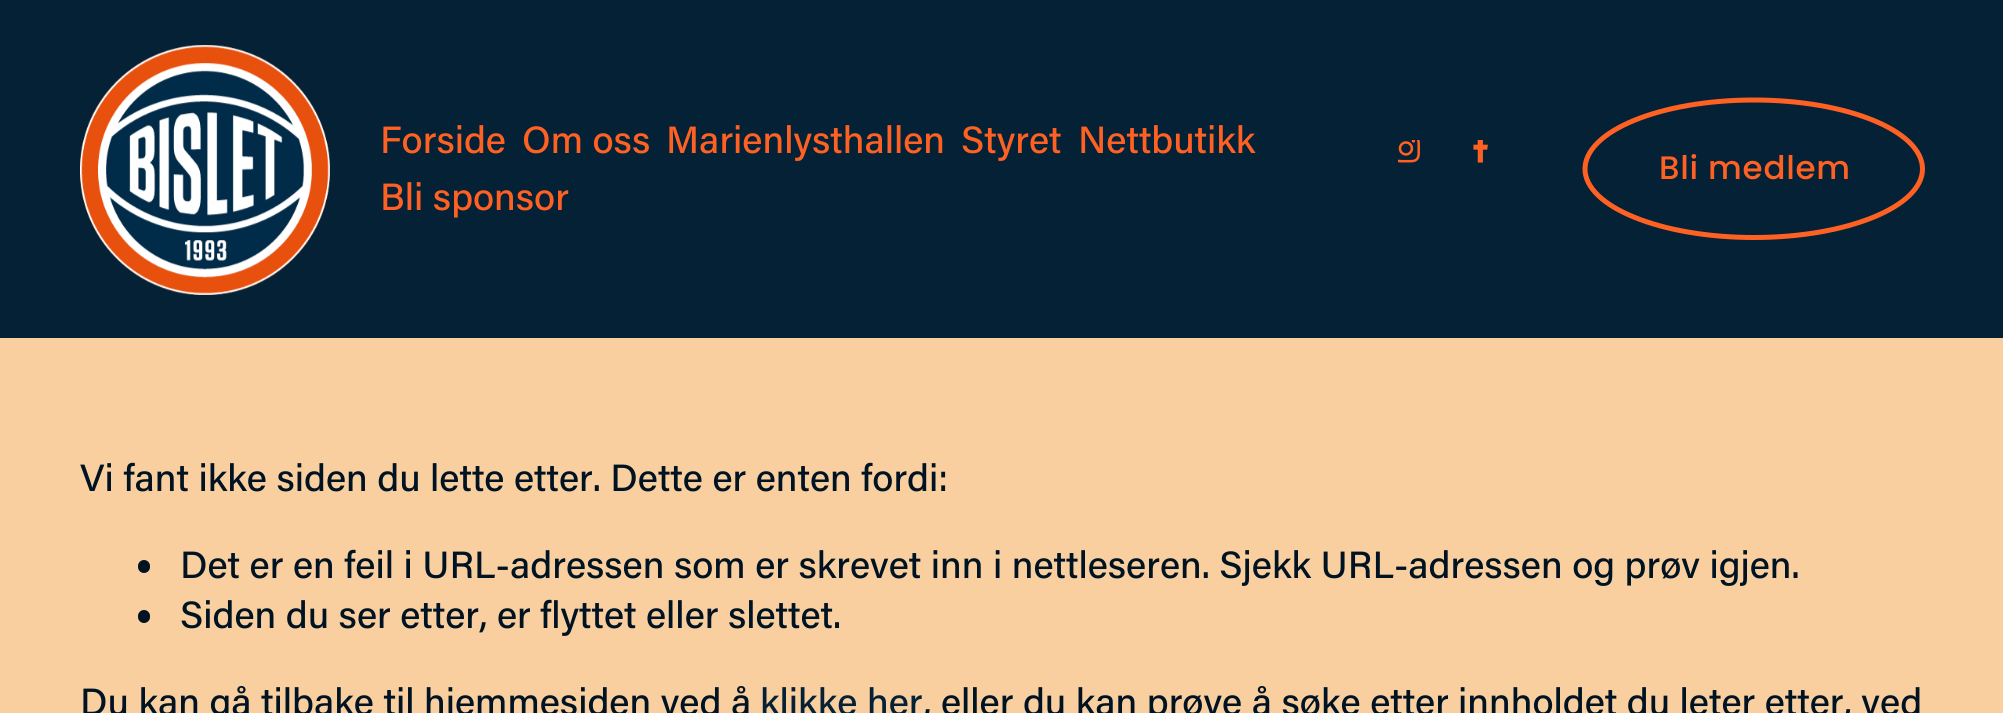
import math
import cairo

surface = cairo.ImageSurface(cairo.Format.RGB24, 2003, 713)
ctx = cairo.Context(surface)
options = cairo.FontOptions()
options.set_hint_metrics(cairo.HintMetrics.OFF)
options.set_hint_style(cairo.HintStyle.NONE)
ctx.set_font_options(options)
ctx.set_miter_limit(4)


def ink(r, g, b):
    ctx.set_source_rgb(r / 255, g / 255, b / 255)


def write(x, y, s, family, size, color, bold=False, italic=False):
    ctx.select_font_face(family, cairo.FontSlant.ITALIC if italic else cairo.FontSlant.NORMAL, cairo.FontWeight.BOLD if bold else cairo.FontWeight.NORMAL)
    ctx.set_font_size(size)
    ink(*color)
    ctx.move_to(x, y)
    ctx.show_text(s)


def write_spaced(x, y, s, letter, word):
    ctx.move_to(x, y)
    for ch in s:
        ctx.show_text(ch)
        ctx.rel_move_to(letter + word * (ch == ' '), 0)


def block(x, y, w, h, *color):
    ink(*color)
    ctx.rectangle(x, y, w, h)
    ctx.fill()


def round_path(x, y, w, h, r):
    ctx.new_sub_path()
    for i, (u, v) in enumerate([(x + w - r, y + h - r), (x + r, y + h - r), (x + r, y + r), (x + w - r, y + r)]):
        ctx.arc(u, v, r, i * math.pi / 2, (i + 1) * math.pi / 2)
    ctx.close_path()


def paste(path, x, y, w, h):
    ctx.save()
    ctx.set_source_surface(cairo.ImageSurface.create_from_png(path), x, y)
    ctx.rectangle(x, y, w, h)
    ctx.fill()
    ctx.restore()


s1 = dict(family="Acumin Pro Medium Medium", size=38, color=(255, 97, 35))
s2 = dict(family="Acumin Pro Medium Medium", size=38, color=(0, 19, 35))
s3 = dict(family="Acumin Pro Medium Medium", size=38, color=(5, 33, 54))

ink(250, 207, 159)
ctx.paint()
block(0, 0, 2003, 338, 5, 33, 54)
paste("pic1.png", 80, 45, 250, 250)
write(380, 153, "Forside", **s1)
write(522, 153, "Om oss", **s1)
write(666, 153, "Marienlysthallen", **s1)
write(961, 153, "Styret", **s1)
write(1078, 153, "Nettbutikk", **s1)
write(380, 210, "Bli sponsor", **s1)
paste("pic2.png", 1398, 140, 22, 23)
paste("pic3.png", 1473, 140, 15, 23)
ctx.new_path()
ctx.move_to(1754, 100)
ctx.curve_to(1847, 100, 1922.5, 131, 1922.5, 169)
ctx.curve_to(1922.5, 206.5, 1847, 237.5, 1754, 237.5)
ctx.curve_to(1660.5, 237.5, 1585, 206.5, 1585, 169)
ctx.curve_to(1585, 131, 1660.5, 100, 1754, 100)
ctx.close_path()
ctx.set_line_width(5)
ctx.stroke()
ctx.select_font_face("Poppins Medium")
ctx.set_font_size(32.5)
write_spaced(1659, 179, "Bli medlem", 0.75, 0)
write(80, 491, "Vi fant ikke siden du lette etter. Dette er enten fordi:", **s2)
round_path(138, 560, 12, 13, 6)
ctx.fill()
write(180, 578, "Det er en feil i URL-adressen som er skrevet inn i nettleseren. Sjekk URL-adressen og prøv igjen.", **s2)
round_path(138, 610, 12, 13, 6)
ctx.fill()
write(180, 628, "Siden du ser etter, er flyttet eller slettet.", **s2)
write(80, 715, "Du kan gå tilbake til hjemmesiden ved å", **s2)
write(760, 715, "klikke her", **s3)
write(923, 715, ", eller du kan prøve å søke etter", **s2)
write(1458, 715, "innholdet du leter etter, ved", **s2)
surface.write_to_png("screenshot.png")
